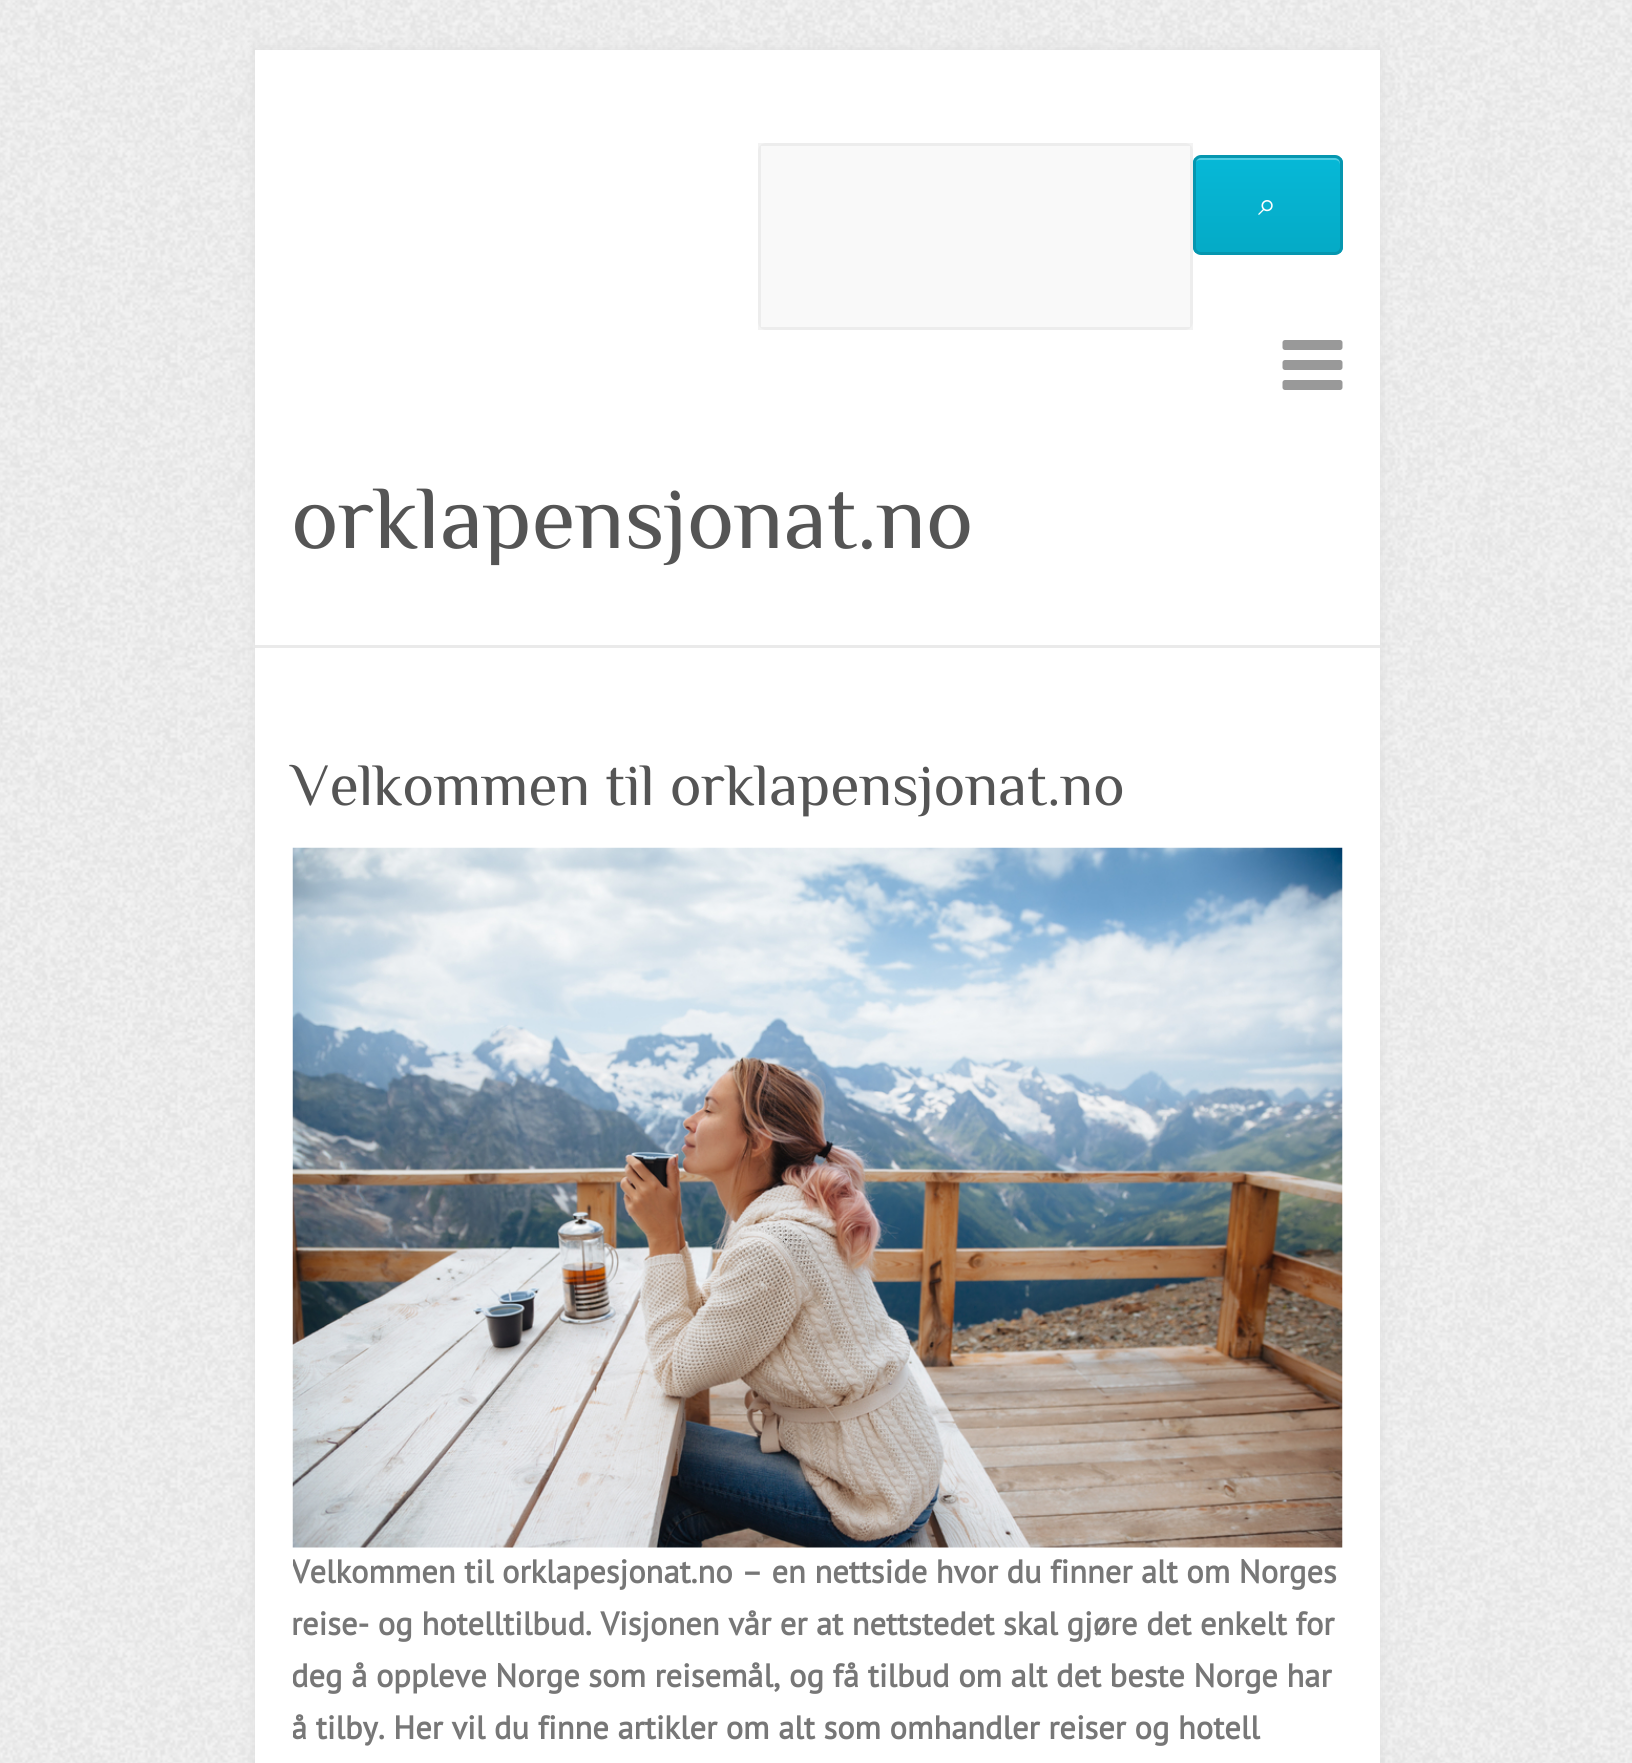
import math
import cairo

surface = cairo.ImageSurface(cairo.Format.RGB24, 1632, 1763)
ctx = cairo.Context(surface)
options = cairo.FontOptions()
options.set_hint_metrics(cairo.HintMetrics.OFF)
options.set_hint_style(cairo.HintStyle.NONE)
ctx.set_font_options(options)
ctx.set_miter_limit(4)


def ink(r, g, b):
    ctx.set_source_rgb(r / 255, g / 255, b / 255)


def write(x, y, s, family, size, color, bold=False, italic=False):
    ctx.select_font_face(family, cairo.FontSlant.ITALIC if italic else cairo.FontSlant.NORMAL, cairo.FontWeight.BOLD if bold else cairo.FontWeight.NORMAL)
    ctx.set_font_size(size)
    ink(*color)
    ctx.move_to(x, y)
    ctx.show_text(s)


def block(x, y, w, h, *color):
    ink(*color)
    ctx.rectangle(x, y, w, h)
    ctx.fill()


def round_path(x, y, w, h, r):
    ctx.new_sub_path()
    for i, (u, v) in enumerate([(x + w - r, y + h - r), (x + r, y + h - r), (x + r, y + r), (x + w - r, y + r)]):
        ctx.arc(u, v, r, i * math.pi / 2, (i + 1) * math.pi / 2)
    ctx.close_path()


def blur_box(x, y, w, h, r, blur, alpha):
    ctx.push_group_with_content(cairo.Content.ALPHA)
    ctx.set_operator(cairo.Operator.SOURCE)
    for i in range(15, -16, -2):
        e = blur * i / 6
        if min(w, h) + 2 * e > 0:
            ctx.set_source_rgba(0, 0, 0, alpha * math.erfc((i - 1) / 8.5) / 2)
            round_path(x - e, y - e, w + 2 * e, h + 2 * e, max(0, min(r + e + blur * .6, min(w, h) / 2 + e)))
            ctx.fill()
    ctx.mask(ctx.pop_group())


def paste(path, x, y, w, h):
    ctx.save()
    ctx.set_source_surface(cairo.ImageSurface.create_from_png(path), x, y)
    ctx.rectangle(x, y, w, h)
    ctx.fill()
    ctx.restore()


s1 = dict(family="FreeSerif", size=32.5, color=(255, 255, 255))
s2 = dict(family="Philosopher", size=90, color=(85, 85, 85))
s3 = dict(family="Philosopher", size=60, color=(85, 85, 85))
s4 = dict(family="PT Sans", size=32.5, color=(119, 119, 119), bold=True)

ink(255, 255, 255)
ctx.paint()
paste("pic1.png", 0, 0, 1632, 1763)
ink(221, 221, 221)
blur_box(255, 50, 1125, 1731, 0, 6, 1)
block(255, 50, 1125, 1713, 255, 255, 255)
ink(249, 249, 249)
round_path(758, 143, 435, 187, 8)
ctx.fill()
ctx.rectangle(759.5, 144.5, 432, 184)
ctx.set_source_rgba(0, 0, 0, 0.05)
ctx.set_line_width(3)
ctx.stroke()
ctx.save()
round_path(1193, 155, 150, 100, 8)
ctx.clip()
gradient = cairo.LinearGradient(1268, 158, 1268, 253)
gradient.add_color_stop_rgba(0, 0.024, 0.722, 0.843, 1)
gradient.add_color_stop_rgba(1, 0.02, 0.667, 0.776, 1)
ctx.set_source(gradient)
ctx.rectangle(1193, 158, 150, 95)
ctx.fill()
ctx.restore()
ink(81, 205, 227)
ctx.new_path()
ctx.move_to(1200, 160)
ctx.line_to(1335, 160)
ctx.curve_to(1338, 160, 1340, 162, 1340, 165)
ctx.line_to(1340, 163)
ctx.curve_to(1340, 160, 1338, 158, 1335, 158)
ctx.line_to(1200, 158)
ctx.curve_to(1197, 158, 1195, 160, 1195, 163)
ctx.line_to(1195, 165)
ctx.curve_to(1195, 162, 1197, 160, 1200, 160)
ctx.close_path()
ctx.fill()
round_path(1194.5, 156.5, 147, 97, 6.5)
ink(5, 150, 175)
ctx.stroke()
write(1258, 215, "⌕", **s1)
paste("pic2.png", 1282, 340, 61, 50)
write(291, 548, "orklapensjonat.no", **s2)
block(255, 645, 1125, 3, 234, 234, 234)
write(291, 805, "Velkommen til orklapensjonat.no", **s3)
paste("pic3.png", 292, 847, 1051, 701)
ctx.save()
ctx.rectangle(293, 848, 1050, 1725)
ctx.clip()
write(291, 1583, "Velkommen til orklapesjonat.no – en nettside hvor du finner alt om Norges", **s4)
ctx.restore()
write(291, 1635, "reise- og hotelltilbud. Visjonen vår er at nettstedet skal gjøre det enkelt for", **s4)
ctx.save()
ctx.rectangle(293, 848, 1050, 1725)
ctx.clip()
write(291, 1687, "deg å oppleve Norge som reisemål, og få tilbud om alt det beste Norge har", **s4)
write(291, 1739, "å tilby. Her vil du finne artikler om alt som omhandler reiser og hotell", **s4)
ctx.restore()
surface.write_to_png("screenshot.png")
